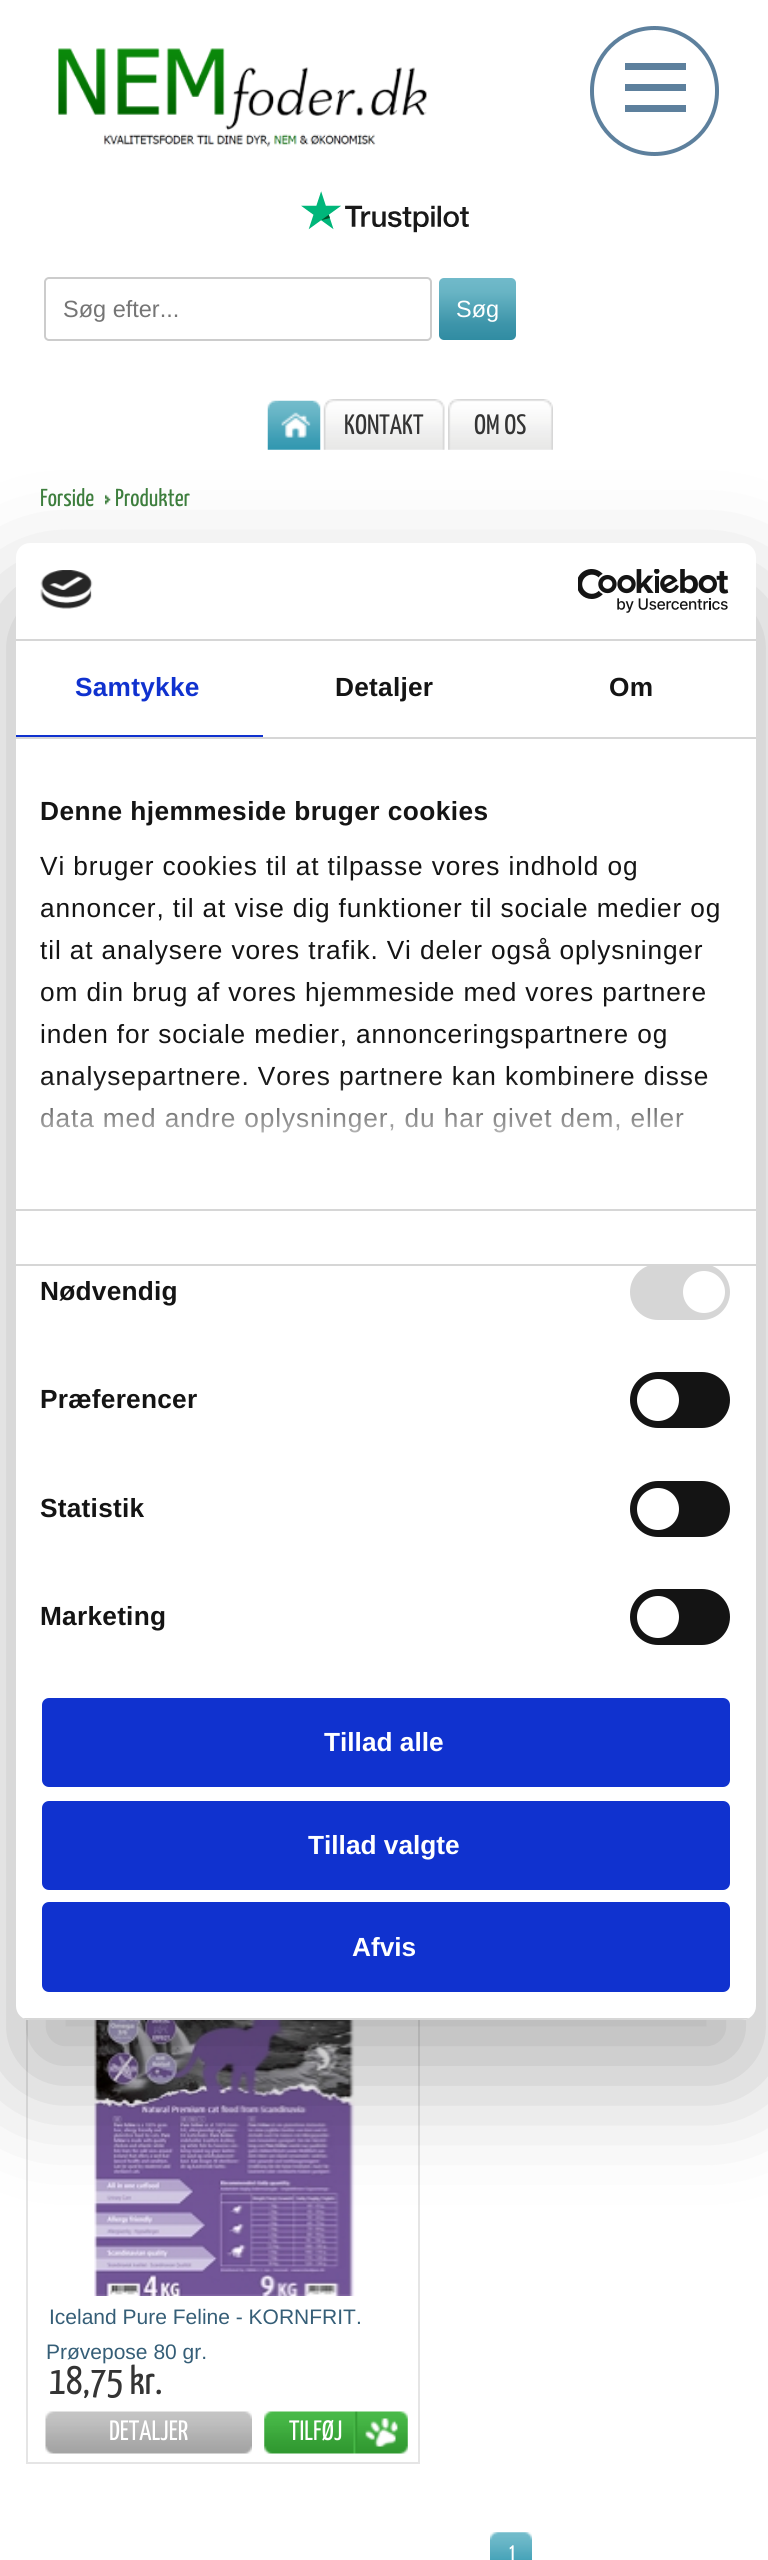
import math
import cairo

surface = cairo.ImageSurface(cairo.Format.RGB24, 768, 2560)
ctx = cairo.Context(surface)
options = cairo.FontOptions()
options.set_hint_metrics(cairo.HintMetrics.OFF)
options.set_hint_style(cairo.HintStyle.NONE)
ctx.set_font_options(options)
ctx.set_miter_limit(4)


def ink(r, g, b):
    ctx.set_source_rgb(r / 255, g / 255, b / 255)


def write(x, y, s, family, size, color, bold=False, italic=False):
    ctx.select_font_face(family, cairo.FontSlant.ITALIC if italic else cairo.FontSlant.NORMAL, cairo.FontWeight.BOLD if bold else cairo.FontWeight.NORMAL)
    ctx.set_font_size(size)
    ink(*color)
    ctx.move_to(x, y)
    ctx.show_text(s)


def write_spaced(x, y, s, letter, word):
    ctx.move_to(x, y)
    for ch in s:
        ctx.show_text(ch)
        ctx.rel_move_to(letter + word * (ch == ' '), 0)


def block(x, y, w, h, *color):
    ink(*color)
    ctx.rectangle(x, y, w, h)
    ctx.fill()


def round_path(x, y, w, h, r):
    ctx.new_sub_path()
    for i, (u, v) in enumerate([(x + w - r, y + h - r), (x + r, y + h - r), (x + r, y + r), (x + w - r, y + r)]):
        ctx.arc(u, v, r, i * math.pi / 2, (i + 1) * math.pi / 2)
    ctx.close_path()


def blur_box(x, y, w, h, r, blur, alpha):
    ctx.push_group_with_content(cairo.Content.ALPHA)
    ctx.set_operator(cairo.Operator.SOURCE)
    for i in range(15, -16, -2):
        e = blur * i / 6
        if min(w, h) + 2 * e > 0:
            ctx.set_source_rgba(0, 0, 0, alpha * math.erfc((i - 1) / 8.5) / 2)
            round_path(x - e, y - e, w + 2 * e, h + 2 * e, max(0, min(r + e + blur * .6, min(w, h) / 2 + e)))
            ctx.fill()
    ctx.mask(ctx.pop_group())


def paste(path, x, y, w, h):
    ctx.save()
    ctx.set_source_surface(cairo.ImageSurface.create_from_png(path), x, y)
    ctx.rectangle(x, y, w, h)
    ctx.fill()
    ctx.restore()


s1 = dict(family="Liberation Sans", size=23.5, color=(117, 117, 117))
s2 = dict(family="Liberation Sans", size=23.5, color=(255, 255, 255))
s3 = dict(family="Yanone Kaffeesatz", size=28, color=(52, 52, 52))
s4 = dict(family="Yanone Kaffeesatz", size=24.5, color=(62, 127, 62))
s5 = dict(family="Liberation Sans", size=21, color=(53, 94, 119))
s6 = dict(family="Yanone Kaffeesatz", size=40, color=(52, 52, 52))
s7 = dict(family="Yanone Kaffeesatz", size=28, color=(255, 255, 255))
s8 = dict(family="Cabin Condensed", size=21, color=(255, 255, 255))
s9 = dict(family="Liberation Sans", size=26.25, color=(255, 255, 255), bold=True)

ink(255, 255, 255)
ctx.paint()
round_path(592, 28, 125, 126, 62.5)
ink(93, 128, 157)
ctx.set_line_width(4)
ctx.stroke()
block(625, 84, 61, 7, 93, 128, 157)
block(625, 63, 61, 7, 93, 128, 157)
block(625, 105, 61, 7, 93, 128, 157)
paste("pic1.png", 58, 48, 369, 99)
paste("pic2.png", 301, 191, 168, 42)
round_path(45, 278, 386, 62, 4)
ink(204, 204, 204)
ctx.set_line_width(2)
ctx.stroke()
write(63, 317, "Søg efter...", **s1)
gradient = cairo.LinearGradient(478, 278, 478, 340)
gradient.add_color_stop_rgba(0, 0.443, 0.729, 0.792, 1)
gradient.add_color_stop_rgba(0.23, 0.408, 0.706, 0.769, 1)
gradient.add_color_stop_rgba(0.73, 0.243, 0.584, 0.667, 1)
gradient.add_color_stop_rgba(1, 0.188, 0.549, 0.635, 1)
ctx.set_source(gradient)
round_path(439, 278, 77, 62, 5)
ctx.fill()
write(456, 317, "Søg", **s2)
paste("pic3.png", 267, 400, 54, 50)
paste("pic4.png", 323, 399, 122, 51)
write(344, 434, "KONTAKT", **s3)
paste("pic5.png", 448, 399, 105, 51)
write(474, 434, "OM OS", **s3)
write(40, 506, "Forside", **s4)
paste("pic6.png", 105, 494, 6, 11)
write(115, 506, "Produkter", **s4)
ctx.rectangle(27, 1924, 392, 539)
ink(229, 229, 229)
ctx.stroke()
paste("pic7.png", 94, 2020, 261, 276)
write(49, 2324, "Iceland Pure Feline - KORNFRIT.", **s5)
write(46, 2359, "Prøvepose 80 gr.", **s5)
write(49, 2394, "18,75 kr.", **s6)
paste("pic8.png", 45, 2411, 207, 43)
write(109, 2440, "DETALJER", **s7)
paste("pic9.png", 264, 2411, 144, 43)
write(289, 2440, "TILFØJ", **s7)
paste("pic10.png", 490, 2532, 42, 28)
write(509, 2560, "1", **s8)
ink(0, 0, 0)
blur_box(16, 599, 740, 1477, 14, 59.5, 0.3)
ink(255, 255, 255)
round_path(16, 543, 740, 1477, 14)
ctx.fill()
block(16, 639, 740, 2, 214, 214, 214)
paste("pic11.png", 40, 570, 53, 39)
paste("pic12.png", 578, 569, 151, 44)
block(16, 737, 740, 2, 214, 214, 214)
block(16, 735, 247, 2, 16, 50, 207)
ctx.select_font_face("Liberation Sans", cairo.FontSlant.NORMAL, cairo.FontWeight.BOLD)
ctx.set_font_size(26.25)
write_spaced(75, 696, "Samtykke", 0.25, 0)
ink(20, 20, 20)
write_spaced(335, 696, "Detaljer", 0.25, 0)
write_spaced(609, 696, "Om", 0.25, 0)
block(16, 1209, 740, 2, 214, 214, 214)
ink(20, 20, 20)
write_spaced(40, 820, "Denne hjemmeside bruger cookies", 0.45, 0)
ctx.select_font_face("Liberation Sans")
write_spaced(40, 875, "Vi bruger cookies til at tilpasse vores indhold og", 0.88, 0)
write_spaced(40, 917, "annoncer, til at vise dig funktioner til sociale medier og", 0.88, 0)
write_spaced(40, 959, "til at analysere vores trafik. Vi deler også oplysninger", 0.88, 0)
write_spaced(40, 1001, "om din brug af vores hjemmeside med vores partnere", 0.88, 0)
write_spaced(40, 1043, "inden for sociale medier, annonceringspartnere og", 0.88, 0)
write_spaced(40, 1085, "analysepartnere. Vores partnere kan kombinere disse", 0.88, 0)
write_spaced(40, 1127, "data med andre oplysninger, du har givet dem, eller", 0.88, 0)
gradient = cairo.LinearGradient(374, 1209, 374, 1078)
gradient.add_color_stop_rgba(0, 1, 1, 1, 1)
gradient.add_color_stop_rgba(0.5, 1, 1, 1, 0.8)
gradient.add_color_stop_rgba(1, 1, 1, 1, 0)
ctx.set_source(gradient)
ctx.rectangle(41, 1080, 666, 53)
ctx.fill()
block(16, 1264, 740, 2, 214, 214, 214)
ctx.select_font_face("Liberation Sans", cairo.FontSlant.NORMAL, cairo.FontWeight.BOLD)
ink(20, 20, 20)
write_spaced(40, 1300, "Nødvendig", 0.25, 0)
ink(214, 214, 214)
round_path(630, 1264, 100, 56, 28)
ctx.fill()
ink(255, 255, 255)
ctx.arc(704, 1292, 21, 0, 2 * math.pi)
ctx.fill()
ink(20, 20, 20)
write_spaced(40, 1408, "Præferencer", 0.25, 0)
round_path(630, 1372, 100, 56, 28)
ctx.fill()
ink(255, 255, 255)
ctx.arc(658, 1400, 21, 0, 2 * math.pi)
ctx.fill()
ink(20, 20, 20)
write_spaced(40, 1517, "Statistik", 0.25, 0)
round_path(630, 1481, 100, 56, 28)
ctx.fill()
ink(255, 255, 255)
ctx.arc(658, 1509, 21, 0, 2 * math.pi)
ctx.fill()
ink(20, 20, 20)
write_spaced(40, 1625, "Marketing", 0.25, 0)
round_path(630, 1589, 100, 56, 28)
ctx.fill()
ink(255, 255, 255)
ctx.arc(658, 1617, 21, 0, 2 * math.pi)
ctx.fill()
ctx.save()
round_path(16, 543, 740, 1477, 14)
ctx.clip()
block(16, 2018, 740, 2, 214, 214, 214)
ctx.restore()
ink(16, 50, 207)
round_path(44, 1700, 684, 85, 5)
ctx.fill_preserve()
ctx.set_line_width(4)
ctx.stroke()
write(324, 1751, "Tillad alle", **s9)
ink(16, 50, 207)
round_path(44, 1803, 684, 85, 5)
ctx.fill_preserve()
ctx.stroke()
write(308, 1854, "Tillad valgte", **s9)
ink(16, 50, 207)
round_path(44, 1904, 684, 86, 5)
ctx.fill_preserve()
ctx.stroke()
write(352, 1956, "Afvis", **s9)
surface.write_to_png("screenshot.png")
